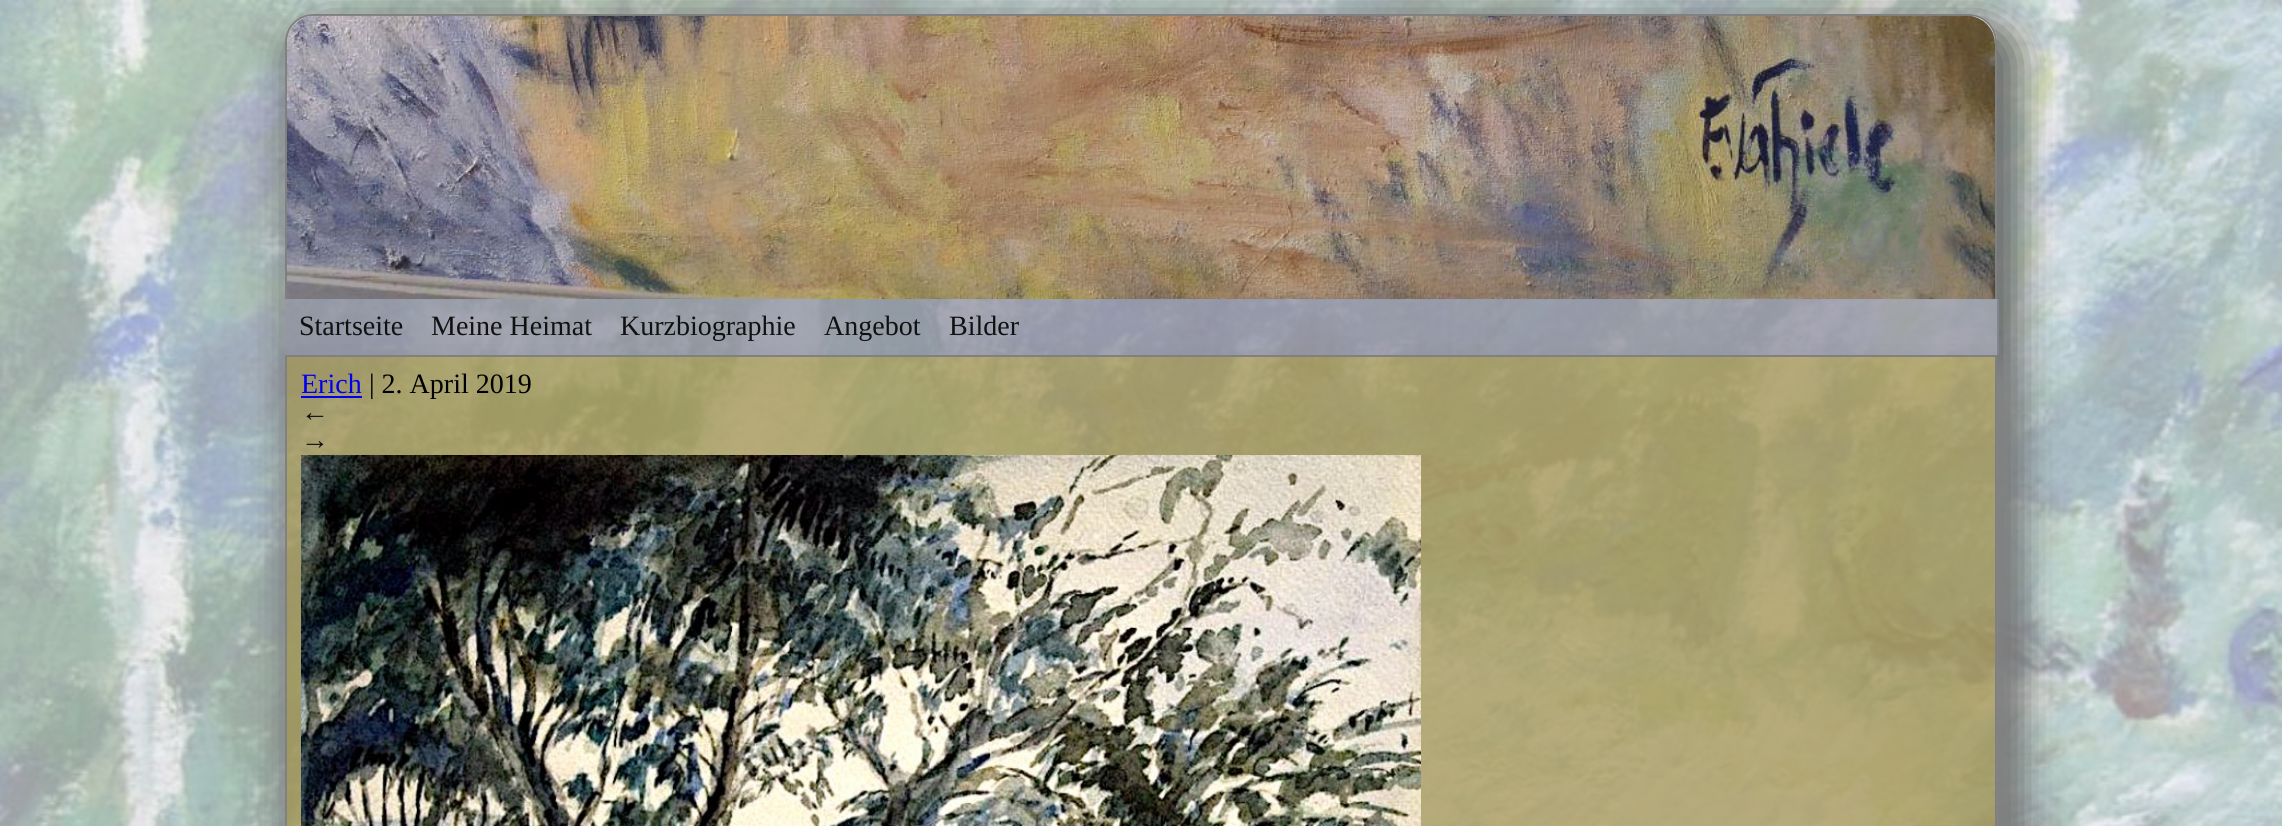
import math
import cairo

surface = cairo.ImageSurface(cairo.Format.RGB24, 2282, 826)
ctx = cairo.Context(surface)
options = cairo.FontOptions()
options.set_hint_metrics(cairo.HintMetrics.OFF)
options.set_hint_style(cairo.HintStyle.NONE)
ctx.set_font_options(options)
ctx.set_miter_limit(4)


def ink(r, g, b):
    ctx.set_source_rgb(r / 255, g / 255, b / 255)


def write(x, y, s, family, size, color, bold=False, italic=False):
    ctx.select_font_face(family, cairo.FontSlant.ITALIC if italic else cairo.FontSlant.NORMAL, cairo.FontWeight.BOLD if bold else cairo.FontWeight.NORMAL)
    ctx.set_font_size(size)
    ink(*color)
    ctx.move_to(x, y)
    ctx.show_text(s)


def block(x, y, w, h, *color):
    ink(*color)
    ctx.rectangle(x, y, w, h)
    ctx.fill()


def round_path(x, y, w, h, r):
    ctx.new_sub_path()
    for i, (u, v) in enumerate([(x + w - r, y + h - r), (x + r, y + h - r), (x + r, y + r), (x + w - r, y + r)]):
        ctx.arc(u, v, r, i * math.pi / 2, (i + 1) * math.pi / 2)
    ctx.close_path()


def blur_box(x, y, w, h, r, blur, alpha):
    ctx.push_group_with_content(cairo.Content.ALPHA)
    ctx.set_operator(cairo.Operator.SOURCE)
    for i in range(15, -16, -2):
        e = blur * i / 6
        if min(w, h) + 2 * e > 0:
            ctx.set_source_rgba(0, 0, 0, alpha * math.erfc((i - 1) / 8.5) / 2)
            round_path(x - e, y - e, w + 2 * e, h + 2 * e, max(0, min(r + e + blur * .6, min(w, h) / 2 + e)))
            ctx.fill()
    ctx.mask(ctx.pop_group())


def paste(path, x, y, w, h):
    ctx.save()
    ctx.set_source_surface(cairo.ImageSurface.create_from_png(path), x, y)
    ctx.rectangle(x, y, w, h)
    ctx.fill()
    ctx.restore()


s1 = dict(family="Liberation Serif", size=28, color=(17, 17, 17))
s2 = dict(family="Liberation Serif", size=28, color=(0, 0, 238))
s3 = dict(family="Liberation Serif", size=28, color=(0, 0, 0))

ink(255, 255, 255)
ctx.paint()
paste("pic1.png", 0, 0, 2282, 826)
ctx.save()
ctx.set_fill_rule(cairo.FillRule.EVEN_ODD)
ctx.new_path()
ctx.move_to(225, 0)
ctx.line_to(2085, 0)
ctx.line_to(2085, 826)
ctx.line_to(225, 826)
ctx.close_path()
ctx.move_to(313, 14)
ctx.line_to(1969, 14)
ctx.curve_to(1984.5, 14, 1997, 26.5, 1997, 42)
ctx.line_to(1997, 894)
ctx.curve_to(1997, 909.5, 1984.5, 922, 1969, 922)
ctx.line_to(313, 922)
ctx.curve_to(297.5, 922, 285, 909.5, 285, 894)
ctx.line_to(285, 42)
ctx.curve_to(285, 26.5, 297.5, 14, 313, 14)
ctx.close_path()
ctx.clip()
ink(102, 102, 102)
blur_box(289, 18, 1732, 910, 39, 21, 1)
ctx.restore()
ctx.new_path()
ctx.move_to(313, 15)
ctx.line_to(1969, 15)
ctx.curve_to(1984, 15, 1996, 27, 1996, 42)
ctx.line_to(1996, 298)
ctx.line_to(286, 298)
ctx.line_to(286, 42)
ctx.curve_to(286, 27, 298, 15, 313, 15)
ctx.close_path()
ink(128, 128, 128)
ctx.stroke()
ctx.set_source_rgba(0.545, 0.541, 0.612, 0.7)
ctx.rectangle(285, 299, 1714, 56)
ctx.fill()
paste("pic2.png", 287, 15, 1708, 285)
ctx.save()
ctx.set_fill_rule(cairo.FillRule.EVEN_ODD)
ctx.new_path()
ctx.move_to(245, 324)
ctx.line_to(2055, 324)
ctx.line_to(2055, 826)
ctx.line_to(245, 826)
ctx.close_path()
ctx.move_to(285, 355)
ctx.line_to(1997, 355)
ctx.line_to(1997, 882)
ctx.line_to(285, 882)
ctx.close_path()
ctx.clip()
ink(136, 136, 136)
blur_box(294, 373, 1712, 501, 0, 16, 1)
ctx.restore()
write(299, 335, "Startseite", **s1)
write(431, 335, "Meine Heimat", **s1)
write(620, 335, "Kurzbiographie", **s1)
write(824, 335, "Angebot", **s1)
write(949, 335, "Bilder", **s1)
ctx.set_source_rgba(0.62, 0.553, 0.278, 0.7)
ctx.rectangle(286, 356, 1710, 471)
ctx.fill_preserve()
ink(128, 128, 128)
ctx.stroke()
write(301, 393, "Erich", **s2)
block(301, 396, 61, 2, 0, 0, 238)
write(369, 393, "| 2. April 2019", **s3)
write(301, 421, "←", **s1)
write(301, 449, "→", **s1)
paste("pic3.png", 301, 455, 1120, 371)
surface.write_to_png("screenshot.png")
